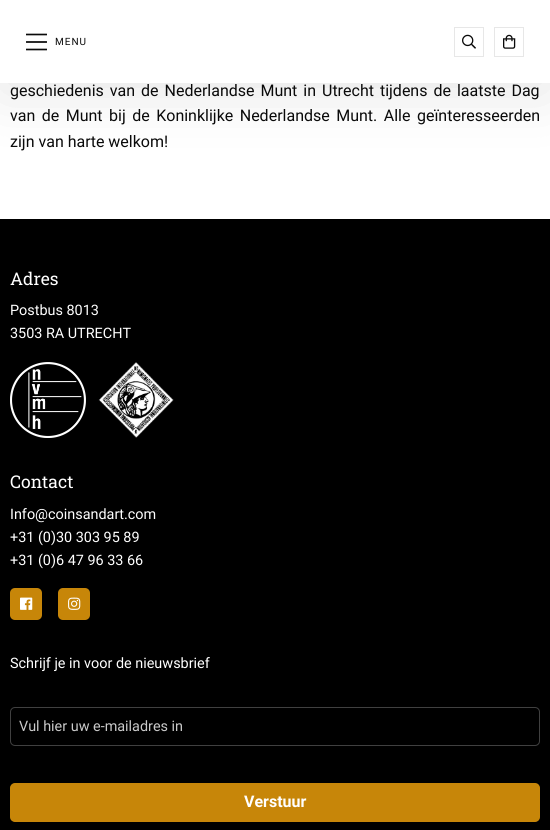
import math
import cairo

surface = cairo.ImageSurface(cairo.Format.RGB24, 550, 830)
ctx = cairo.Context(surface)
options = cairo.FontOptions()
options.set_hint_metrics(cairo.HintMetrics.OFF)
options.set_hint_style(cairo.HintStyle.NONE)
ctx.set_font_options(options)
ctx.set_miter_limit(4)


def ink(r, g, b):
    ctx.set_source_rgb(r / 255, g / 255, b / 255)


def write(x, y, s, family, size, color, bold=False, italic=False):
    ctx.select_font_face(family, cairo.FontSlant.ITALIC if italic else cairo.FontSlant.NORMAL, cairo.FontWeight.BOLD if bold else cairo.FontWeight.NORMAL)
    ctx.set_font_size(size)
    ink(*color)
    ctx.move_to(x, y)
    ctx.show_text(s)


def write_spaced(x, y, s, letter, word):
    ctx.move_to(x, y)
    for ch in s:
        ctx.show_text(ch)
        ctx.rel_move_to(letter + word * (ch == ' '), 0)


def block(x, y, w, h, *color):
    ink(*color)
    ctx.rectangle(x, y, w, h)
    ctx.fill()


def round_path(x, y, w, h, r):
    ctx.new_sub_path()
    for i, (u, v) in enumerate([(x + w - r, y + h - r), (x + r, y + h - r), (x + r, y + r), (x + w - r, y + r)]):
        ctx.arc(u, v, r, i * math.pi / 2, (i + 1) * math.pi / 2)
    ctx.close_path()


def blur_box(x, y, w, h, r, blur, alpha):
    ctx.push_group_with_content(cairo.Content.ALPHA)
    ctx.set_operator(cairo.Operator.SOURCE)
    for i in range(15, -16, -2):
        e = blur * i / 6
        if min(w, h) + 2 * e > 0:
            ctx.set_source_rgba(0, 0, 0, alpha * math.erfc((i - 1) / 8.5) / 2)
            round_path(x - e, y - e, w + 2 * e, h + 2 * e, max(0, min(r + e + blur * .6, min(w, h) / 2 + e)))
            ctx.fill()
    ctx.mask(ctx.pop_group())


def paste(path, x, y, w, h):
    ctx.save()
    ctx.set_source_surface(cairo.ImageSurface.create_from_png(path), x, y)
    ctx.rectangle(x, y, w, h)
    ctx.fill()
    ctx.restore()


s1 = dict(family="Roboto", size=16, color=(10, 10, 10))
s2 = dict(family="Roboto Slab", size=17.5, color=(255, 255, 255))
s3 = dict(family="Roboto", size=14.4, color=(255, 255, 255))
s4 = dict(family="Roboto", size=14.4, color=(202, 202, 202))
s5 = dict(family="Roboto", size=16, color=(255, 255, 255), bold=True)

ink(255, 255, 255)
ctx.paint()
ink(0, 0, 0)
blur_box(0, 10, 550, 83, 0, 30, 0.1)
block(0, 0, 550, 83, 255, 255, 255)
paste("pic1.png", 26, 33, 21, 18)
ctx.select_font_face("Roboto")
ctx.set_font_size(10)
ink(10, 10, 10)
write_spaced(55, 45, "MENU", 1, 0)
ctx.rectangle(454.5, 27.5, 29, 29)
ink(231, 231, 231)
ctx.set_line_width(1)
ctx.stroke()
paste("pic2.png", 462, 34, 14, 15)
ctx.rectangle(494.5, 27.5, 29, 29)
ctx.stroke()
paste("pic3.png", 503, 34, 13, 15)
ctx.set_font_size(16)
ink(10, 10, 10)
write_spaced(10, 96, "geschiedenis van de Nederlandse Munt in Utrecht tijdens de laatste Dag", 0, 2)
write_spaced(10, 121, "van de Munt bij de Koninklijke Nederlandse Munt. Alle geïnteresseerden", 0, 2.5)
write(10, 147, "zijn van harte welkom!", **s1)
block(0, 219, 550, 611, 0, 0, 0)
write(10, 285, "Adres", **s2)
write(10, 315, "Postbus 8013", **s3)
write(10, 338, "3503 RA UTRECHT", **s3)
paste("pic4.png", 10, 362, 76, 76)
paste("pic5.png", 98, 362, 76, 76)
write(10, 488, "Contact", **s2)
write(10, 519, "Info@coinsandart.com", **s3)
write(10, 542, "+31 (0)30 303 95 89", **s3)
write(10, 565, "+31 (0)6 47 96 33 66", **s3)
ink(199, 134, 9)
round_path(10, 588, 32, 32, 5)
ctx.fill()
paste("pic6.png", 20, 597, 13, 13)
round_path(58, 588, 32, 32, 5)
ctx.fill()
paste("pic7.png", 68, 597, 13, 13)
write(10, 668, "Schrijf je in voor de nieuwsbrief", **s3)
round_path(10.5, 707.5, 529, 38, 4.5)
ink(64, 64, 64)
ctx.stroke()
write(19, 731, "Vul hier uw e-mailadres in", **s4)
ink(199, 134, 9)
round_path(11, 784, 528, 37, 4)
ctx.fill_preserve()
ctx.set_line_width(2)
ctx.stroke()
write(244, 807, "Verstuur", **s5)
surface.write_to_png("screenshot.png")
